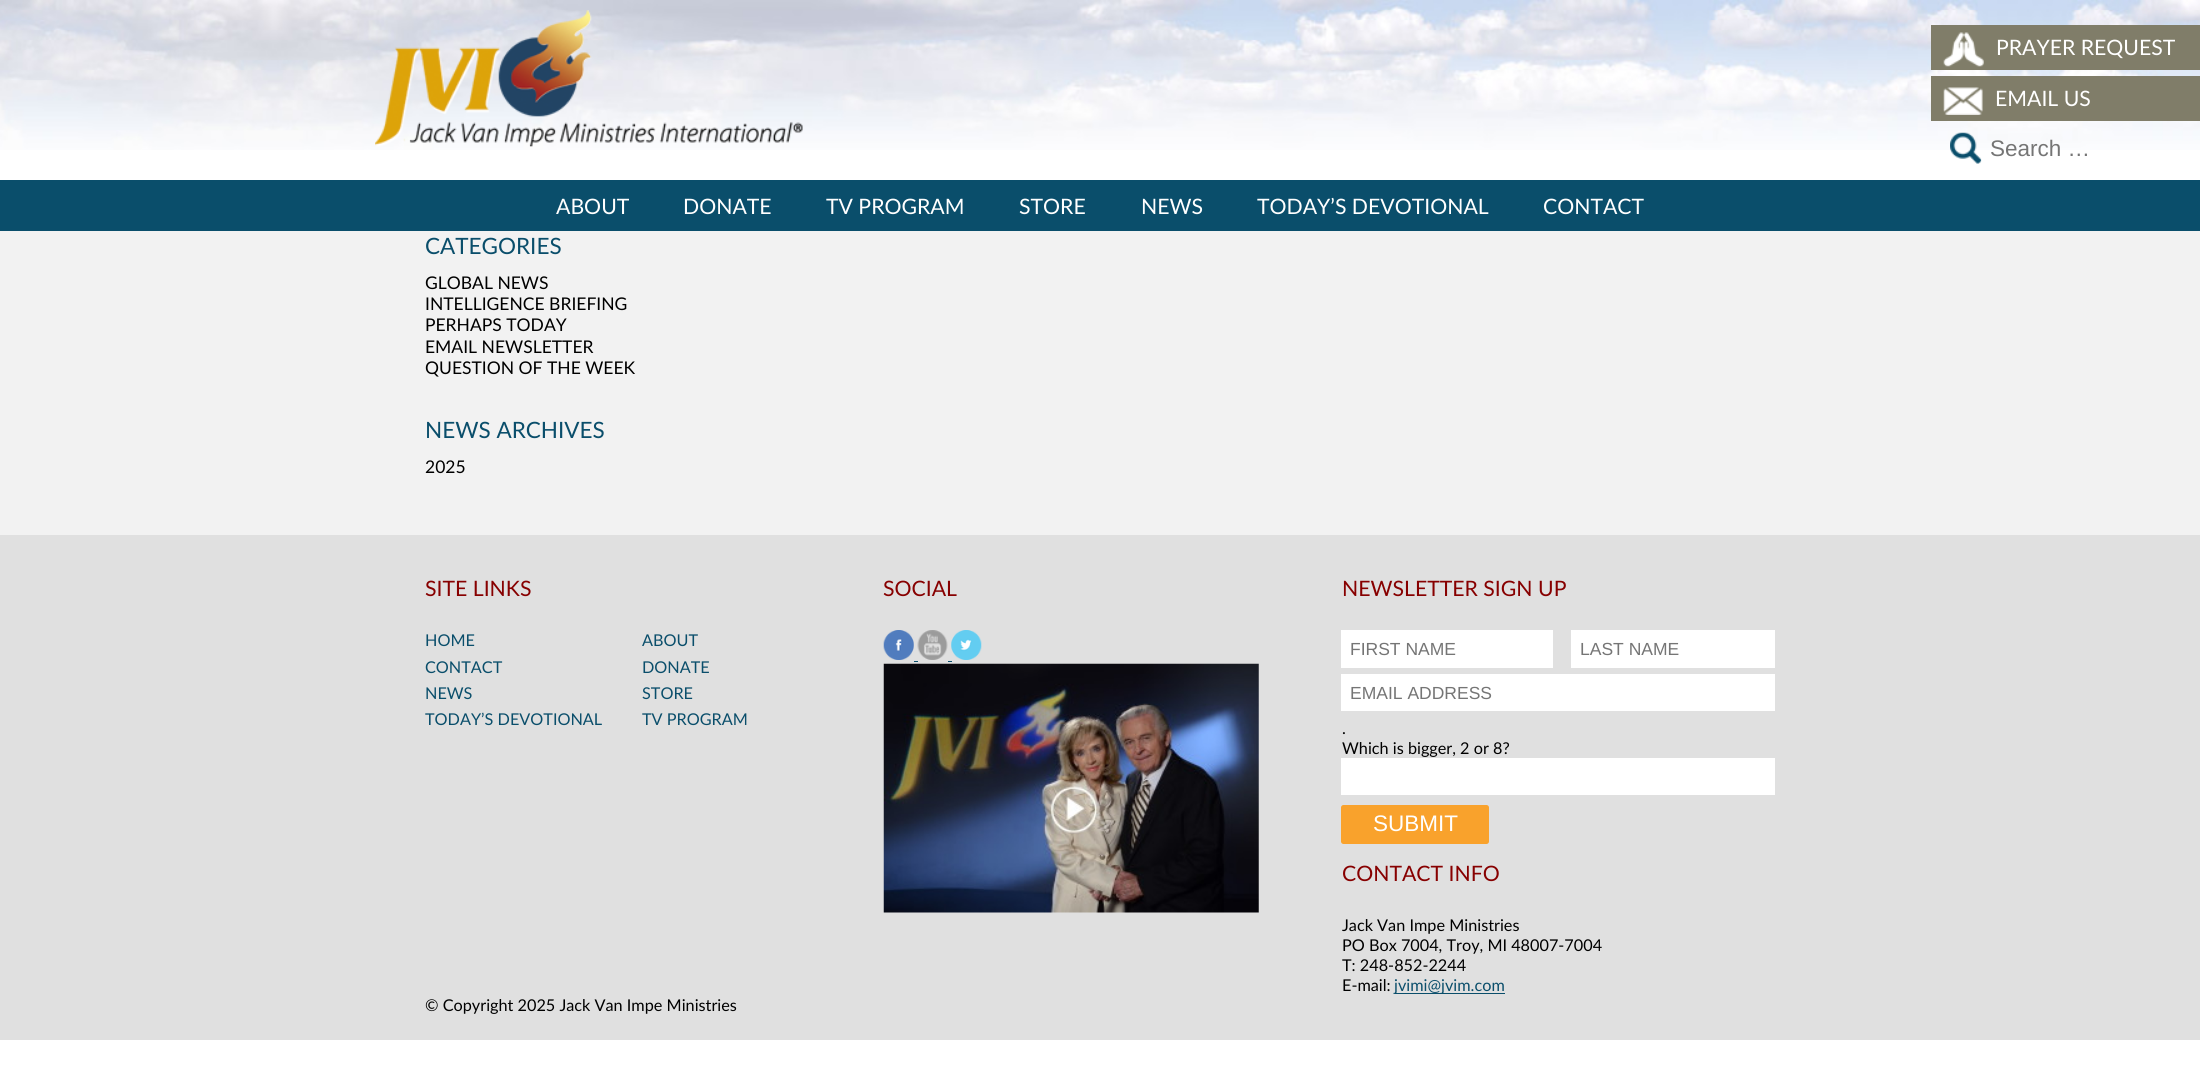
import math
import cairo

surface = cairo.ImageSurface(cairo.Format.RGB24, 2200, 1071)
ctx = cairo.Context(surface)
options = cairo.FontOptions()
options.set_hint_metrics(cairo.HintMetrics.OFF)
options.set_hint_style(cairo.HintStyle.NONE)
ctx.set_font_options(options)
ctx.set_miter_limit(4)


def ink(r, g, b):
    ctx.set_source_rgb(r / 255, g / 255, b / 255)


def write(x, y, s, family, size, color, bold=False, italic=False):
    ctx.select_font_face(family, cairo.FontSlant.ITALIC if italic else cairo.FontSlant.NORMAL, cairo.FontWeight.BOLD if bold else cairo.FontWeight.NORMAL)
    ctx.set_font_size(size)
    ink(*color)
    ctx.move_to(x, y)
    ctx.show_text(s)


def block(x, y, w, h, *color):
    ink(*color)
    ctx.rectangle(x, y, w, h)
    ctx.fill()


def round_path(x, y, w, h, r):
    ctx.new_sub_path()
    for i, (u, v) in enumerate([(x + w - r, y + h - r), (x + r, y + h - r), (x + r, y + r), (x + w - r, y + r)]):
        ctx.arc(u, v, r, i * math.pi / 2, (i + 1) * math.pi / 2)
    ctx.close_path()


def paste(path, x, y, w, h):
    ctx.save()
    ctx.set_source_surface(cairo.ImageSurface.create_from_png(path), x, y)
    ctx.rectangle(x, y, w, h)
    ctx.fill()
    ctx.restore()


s1 = dict(family="Lato", size=21.25, color=(255, 255, 255))
s2 = dict(family="Liberation Sans", size=22.5, color=(117, 117, 117))
s3 = dict(family="Lato", size=22.5, color=(10, 78, 107))
s4 = dict(family="Lato", size=17.5, color=(0, 0, 0))
s5 = dict(family="Lato", size=21.25, color=(135, 0, 0))
s6 = dict(family="Lato", size=16.25, color=(10, 78, 107))
s7 = dict(family="Liberation Sans", size=17.5, color=(117, 117, 117))
s8 = dict(family="Lato", size=16.25, color=(0, 0, 0))
s9 = dict(family="Liberation Sans", size=22.5, color=(255, 255, 255))

ink(255, 255, 255)
ctx.paint()
paste("pic1.png", 0, 0, 2200, 150)
paste("pic2.png", 375, 10, 428, 137)
block(1931, 25, 269, 45, 128, 125, 105)
paste("pic3.png", 1943, 32, 41, 35)
write(1996, 55, "PRAYER REQUEST", **s1)
block(1931, 76, 269, 45, 128, 125, 105)
paste("pic4.png", 1943, 87, 40, 28)
write(1995, 106, "EMAIL US", **s1)
paste("pic5.png", 1950, 132, 32, 32)
write(1990, 156, "Search …", **s2)
block(0, 180, 2200, 51, 10, 78, 107)
write(556, 214, "ABOUT", **s1)
write(683, 214, "DONATE", **s1)
write(826, 214, "TV PROGRAM", **s1)
write(1019, 214, "STORE", **s1)
write(1141, 214, "NEWS", **s1)
write(1257, 214, "TODAY’S DEVOTIONAL", **s1)
write(1543, 214, "CONTACT", **s1)
block(0, 231, 2200, 304, 242, 242, 242)
write(425, 254, "CATEGORIES", **s3)
write(425, 289, "GLOBAL NEWS", **s4)
write(425, 310, "INTELLIGENCE BRIEFING", **s4)
write(425, 331, "PERHAPS TODAY", **s4)
write(425, 353, "EMAIL NEWSLETTER", **s4)
write(425, 374, "QUESTION OF THE WEEK", **s4)
write(425, 438, "NEWS ARCHIVES", **s3)
write(425, 473, "2025", **s4)
block(0, 535, 2200, 505, 224, 224, 224)
write(425, 596, "SITE LINKS", **s5)
write(425, 646, "HOME", **s6)
write(642, 646, "ABOUT", **s6)
write(425, 673, "CONTACT", **s6)
write(642, 673, "DONATE", **s6)
write(425, 699, "NEWS", **s6)
write(642, 699, "STORE", **s6)
write(425, 725, "TODAY’S DEVOTIONAL", **s6)
write(642, 725, "TV PROGRAM", **s6)
write(883, 596, "SOCIAL", **s5)
paste("pic6.png", 883, 630, 31, 30)
paste("pic7.png", 917, 630, 31, 30)
paste("pic8.png", 951, 630, 31, 30)
block(914, 661, 4, 1, 10, 78, 107)
block(948, 661, 4, 1, 10, 78, 107)
paste("pic9.png", 883, 663, 376, 250)
write(1342, 596, "NEWSLETTER SIGN UP", **s5)
block(1341, 630, 212, 38, 255, 255, 255)
write(1350, 655, "FIRST NAME", **s7)
block(1571, 630, 204, 38, 255, 255, 255)
write(1580, 655, "LAST NAME", **s7)
block(1341, 674, 434, 37, 255, 255, 255)
write(1350, 699, "EMAIL ADDRESS", **s7)
write(1342, 734, ".", **s8)
write(1342, 754, "Which is bigger, 2 or 8?", **s8)
block(1341, 758, 434, 37, 255, 255, 255)
ink(249, 162, 44)
round_path(1341, 805, 148, 39, 2.5)
ctx.fill()
write(1373, 831, "SUBMIT", **s9)
write(1342, 881, "CONTACT INFO", **s5)
write(1342, 931, "Jack Van Impe Ministries", **s8)
write(1342, 951, "PO Box 7004, Troy, MI 48007-7004", **s8)
write(1342, 971, "T: 248-852-2244", **s8)
write(1342, 991, "E-mail:", **s8)
block(1395, 993, 110, 1, 10, 78, 107)
write(1394, 991, "jvimi@jvim.com", **s6)
write(425, 1011, "© Copyright 2025 Jack Van Impe Ministries", **s8)
surface.write_to_png("screenshot.png")
